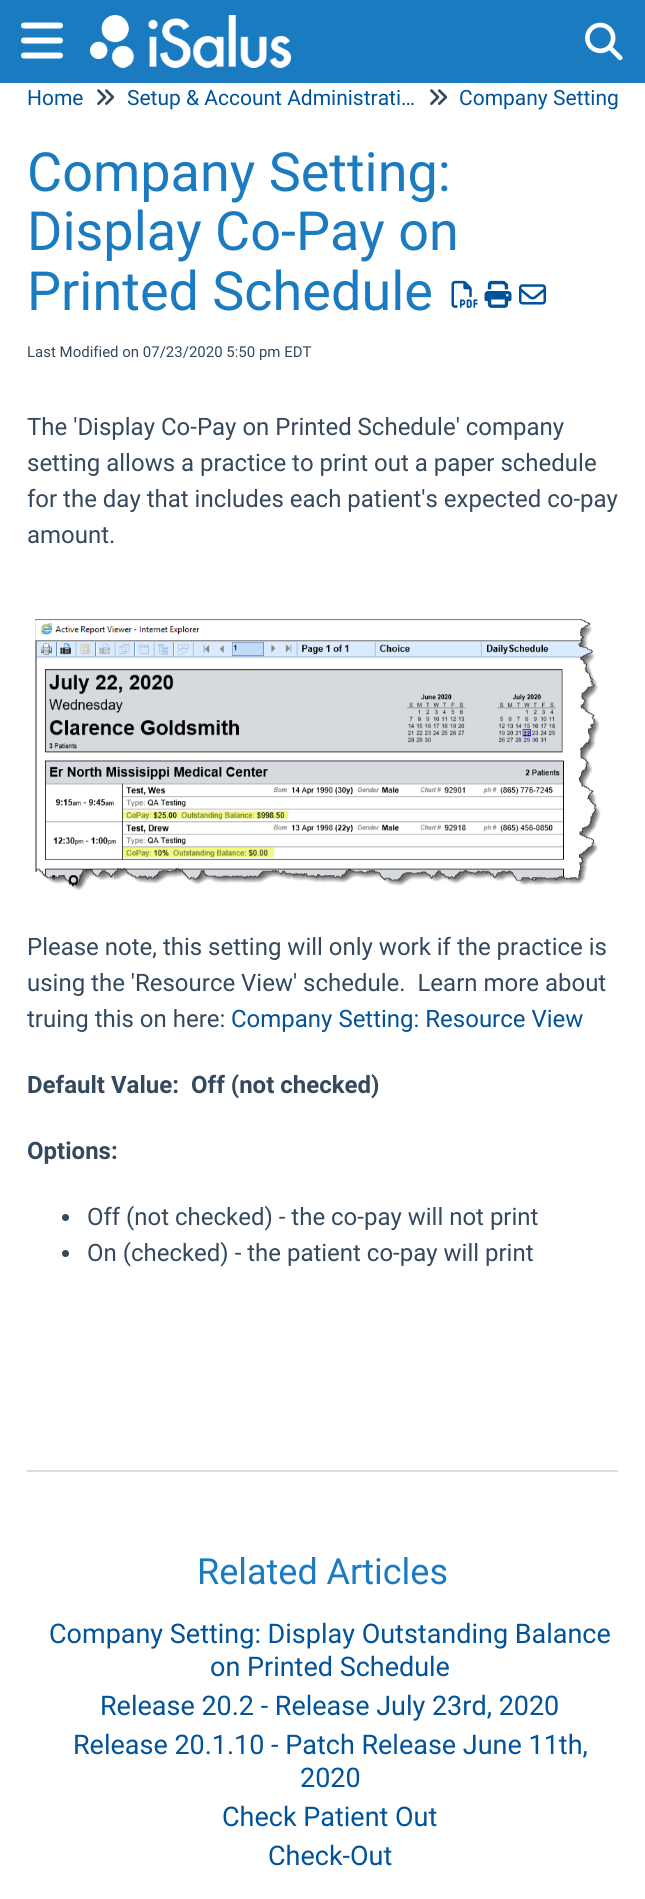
import math
import cairo

surface = cairo.ImageSurface(cairo.Format.RGB24, 645, 1899)
ctx = cairo.Context(surface)
options = cairo.FontOptions()
options.set_hint_metrics(cairo.HintMetrics.OFF)
options.set_hint_style(cairo.HintStyle.NONE)
ctx.set_font_options(options)
ctx.set_miter_limit(4)


def ink(r, g, b):
    ctx.set_source_rgb(r / 255, g / 255, b / 255)


def write(x, y, s, family, size, color, bold=False, italic=False):
    ctx.select_font_face(family, cairo.FontSlant.ITALIC if italic else cairo.FontSlant.NORMAL, cairo.FontWeight.BOLD if bold else cairo.FontWeight.NORMAL)
    ctx.set_font_size(size)
    ink(*color)
    ctx.move_to(x, y)
    ctx.show_text(s)


def block(x, y, w, h, *color):
    ink(*color)
    ctx.rectangle(x, y, w, h)
    ctx.fill()


def paste(path, x, y, w, h):
    ctx.save()
    ctx.set_source_surface(cairo.ImageSurface.create_from_png(path), x, y)
    ctx.rectangle(x, y, w, h)
    ctx.fill()
    ctx.restore()


s1 = dict(family="Roboto", size=21, color=(0, 83, 153))
s2 = dict(family="Roboto", size=54, color=(26, 123, 193))
s3 = dict(family="Roboto", size=15, color=(52, 73, 94))
s4 = dict(family="Roboto", size=24, color=(52, 73, 94))
s5 = dict(family="Roboto", size=24, color=(0, 83, 153))
s6 = dict(family="Roboto", size=24, color=(52, 73, 94), bold=True)
s7 = dict(family="Roboto", size=36, color=(26, 123, 193))
s8 = dict(family="Roboto", size=27, color=(0, 83, 153))

ink(255, 255, 255)
ctx.paint()
block(0, 0, 645, 83, 26, 123, 193)
paste("pic1.png", 21, 22, 42, 37)
paste("pic2.png", 90, 15, 201, 53)
paste("pic3.png", 585, 22, 38, 39)
write(27, 105, "Home", **s1)
paste("pic4.png", 97, 89, 18, 16)
write(127, 105, "Setup & Account Administrati…", **s1)
paste("pic4.png", 430, 89, 18, 16)
write(459, 105, "Company Setting", **s1)
write(27, 191, "Company Setting:", **s2)
write(27, 250, "Display Co-Pay on", **s2)
write(27, 310, "Printed Schedule", **s2)
paste("pic5.png", 451, 280, 27, 28)
paste("pic6.png", 484, 280, 28, 28)
paste("pic7.png", 519, 284, 27, 21)
write(27, 357, "Last Modified on 07/23/2020 5:50 pm EDT", **s3)
block(27, 1470, 591, 2, 221, 221, 221)
write(27, 435, "The 'Display Co-Pay on Printed Schedule' company", **s4)
write(27, 471, "setting allows a practice to print out a paper schedule", **s4)
write(27, 507, "for the day that includes each patient's expected co-pay", **s4)
write(27, 543, "amount.", **s4)
paste("pic8.png", 35, 619, 566, 272)
write(27, 955, "Please note, this setting will only work if the practice is", **s4)
write(27, 991, "using the 'Resource View' schedule.  Learn more about", **s4)
write(27, 1027, "truing this on here:", **s4)
write(231, 1027, "Company Setting: Resource View", **s5)
write(27, 1093, "Default Value:  Off (not checked)", **s6)
write(27, 1159, "Options:", **s6)
ctx.new_path()
ctx.arc(65.5, 1217.5, 3.5, 0, 2 * math.pi)
ctx.fill()
write(87, 1225, "Off (not checked) - the co-pay will not print", **s4)
ctx.new_path()
ctx.arc(65.5, 1253.5, 3.5, 0, 2 * math.pi)
ctx.fill()
write(87, 1261, "On (checked) - the patient co-pay will print", **s4)
write(197, 1584, "Related Articles", **s7)
write(49, 1643, "Company Setting: Display Outstanding Balance", **s8)
write(210, 1676, "on Printed Schedule", **s8)
write(100, 1715, "Release 20.2 - Release July 23rd, 2020", **s8)
write(73, 1754, "Release 20.1.10 - Patch Release June 11th,", **s8)
write(300, 1787, "2020", **s8)
write(222, 1826, "Check Patient Out", **s8)
write(268, 1865, "Check-Out", **s8)
surface.write_to_png("screenshot.png")
